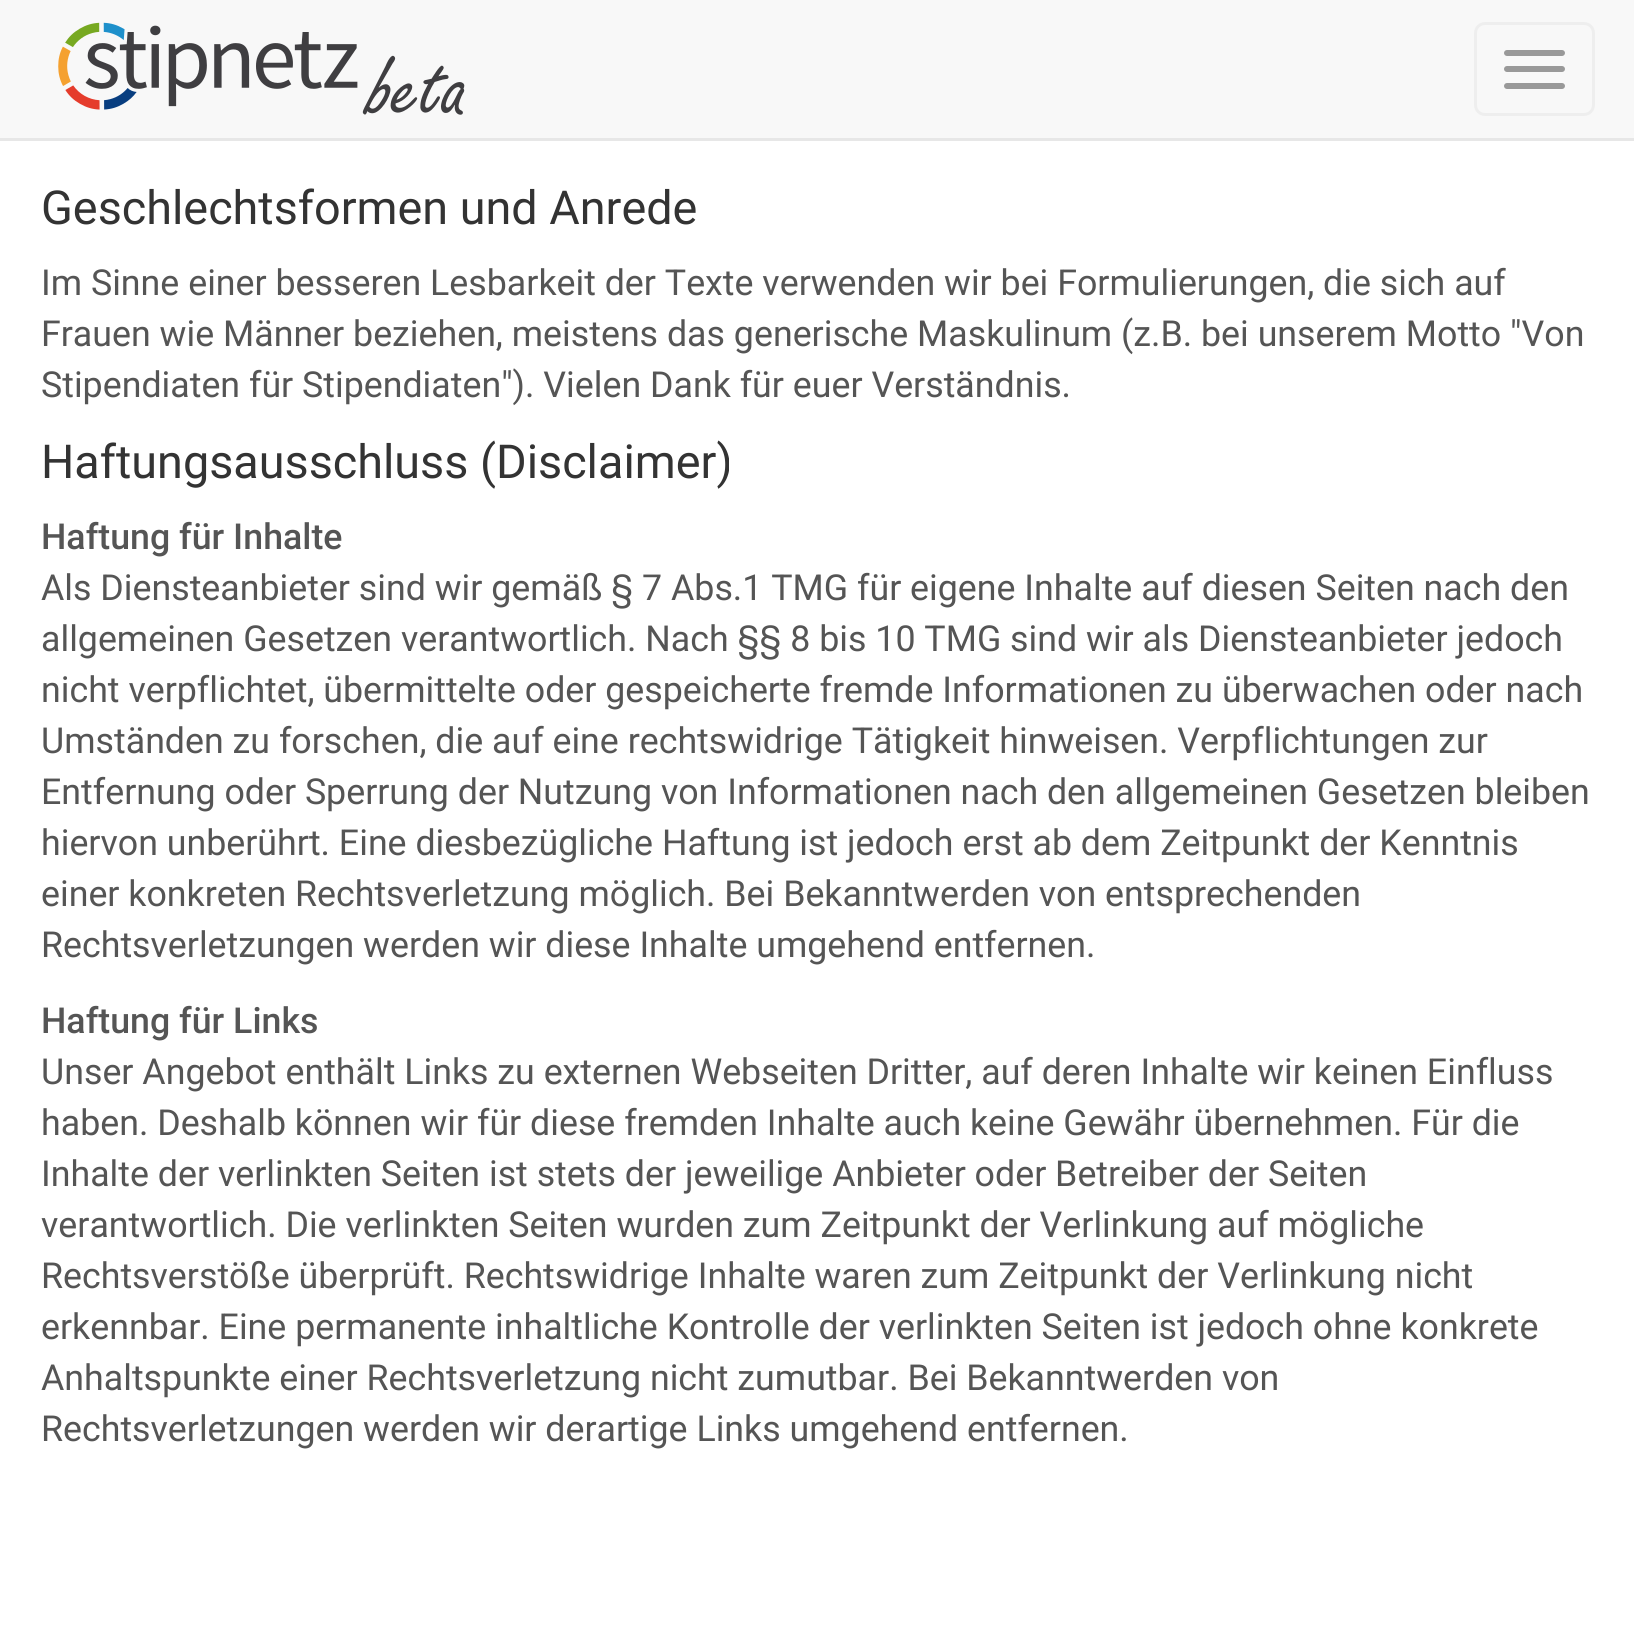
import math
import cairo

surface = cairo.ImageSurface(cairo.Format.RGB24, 1634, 1639)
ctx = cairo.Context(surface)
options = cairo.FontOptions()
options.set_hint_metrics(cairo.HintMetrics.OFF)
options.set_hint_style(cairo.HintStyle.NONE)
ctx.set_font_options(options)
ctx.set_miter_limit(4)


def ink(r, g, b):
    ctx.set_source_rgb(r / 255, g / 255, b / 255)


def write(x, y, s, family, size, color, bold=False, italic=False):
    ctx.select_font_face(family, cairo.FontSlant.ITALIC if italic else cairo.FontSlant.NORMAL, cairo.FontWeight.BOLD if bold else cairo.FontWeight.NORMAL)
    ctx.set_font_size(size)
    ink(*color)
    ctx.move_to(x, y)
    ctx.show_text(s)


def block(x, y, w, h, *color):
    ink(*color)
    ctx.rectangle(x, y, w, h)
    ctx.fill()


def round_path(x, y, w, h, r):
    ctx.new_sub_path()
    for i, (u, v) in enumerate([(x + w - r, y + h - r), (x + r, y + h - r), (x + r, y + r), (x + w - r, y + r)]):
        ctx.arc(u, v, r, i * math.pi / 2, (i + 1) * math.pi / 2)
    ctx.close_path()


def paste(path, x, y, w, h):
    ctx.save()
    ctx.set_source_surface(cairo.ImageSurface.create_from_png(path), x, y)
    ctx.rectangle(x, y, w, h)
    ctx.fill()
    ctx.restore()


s1 = dict(family="Roboto", size=46.75, color=(51, 51, 51))
s2 = dict(family="Roboto", size=35.75, color=(85, 85, 85))
s3 = dict(family="Roboto Medium", size=35.75, color=(85, 85, 85))

ink(255, 255, 255)
ctx.paint()
block(0, 0, 1634, 138, 248, 248, 248)
block(0, 138, 1634, 3, 231, 231, 231)
paste("pic1.png", 58, 22, 407, 93)
round_path(1475.5, 23.5, 118, 91, 9.5)
ink(238, 238, 238)
ctx.set_line_width(3)
ctx.stroke()
ink(153, 153, 153)
round_path(1504, 50, 61, 6, 3)
ctx.fill()
round_path(1504, 66, 61, 6, 3)
ctx.fill()
round_path(1504, 83, 61, 6, 3)
ctx.fill()
write(41, 224, "Geschlechtsformen und Anrede", **s1)
write(41, 295, "Im Sinne einer besseren Lesbarkeit der Texte verwenden wir bei Formulierungen, die sich auf", **s2)
write(41, 346, "Frauen wie Männer beziehen, meistens das generische Maskulinum (z.B. bei unserem Motto \"Von", **s2)
write(41, 397, "Stipendiaten für Stipendiaten\"). Vielen Dank für euer Verständnis.", **s2)
write(41, 478, "Haftungsausschluss (Disclaimer)", **s1)
write(41, 549, "Haftung für Inhalte", **s3)
write(41, 600, "Als Diensteanbieter sind wir gemäß § 7 Abs.1 TMG für eigene Inhalte auf diesen Seiten nach den", **s2)
write(41, 651, "allgemeinen Gesetzen verantwortlich. Nach §§ 8 bis 10 TMG sind wir als Diensteanbieter jedoch", **s2)
write(41, 702, "nicht verpflichtet, übermittelte oder gespeicherte fremde Informationen zu überwachen oder nach", **s2)
write(41, 753, "Umständen zu forschen, die auf eine rechtswidrige Tätigkeit hinweisen. Verpflichtungen zur", **s2)
write(41, 804, "Entfernung oder Sperrung der Nutzung von Informationen nach den allgemeinen Gesetzen bleiben", **s2)
write(41, 855, "hiervon unberührt. Eine diesbezügliche Haftung ist jedoch erst ab dem Zeitpunkt der Kenntnis", **s2)
write(41, 906, "einer konkreten Rechtsverletzung möglich. Bei Bekanntwerden von entsprechenden", **s2)
write(41, 957, "Rechtsverletzungen werden wir diese Inhalte umgehend entfernen.", **s2)
write(41, 1033, "Haftung für Links", **s3)
write(41, 1084, "Unser Angebot enthält Links zu externen Webseiten Dritter, auf deren Inhalte wir keinen Einfluss", **s2)
write(41, 1135, "haben. Deshalb können wir für diese fremden Inhalte auch keine Gewähr übernehmen. Für die", **s2)
write(41, 1186, "Inhalte der verlinkten Seiten ist stets der jeweilige Anbieter oder Betreiber der Seiten", **s2)
write(41, 1237, "verantwortlich. Die verlinkten Seiten wurden zum Zeitpunkt der Verlinkung auf mögliche", **s2)
write(41, 1288, "Rechtsverstöße überprüft. Rechtswidrige Inhalte waren zum Zeitpunkt der Verlinkung nicht", **s2)
write(41, 1339, "erkennbar. Eine permanente inhaltliche Kontrolle der verlinkten Seiten ist jedoch ohne konkrete", **s2)
write(41, 1390, "Anhaltspunkte einer Rechtsverletzung nicht zumutbar. Bei Bekanntwerden von", **s2)
write(41, 1441, "Rechtsverletzungen werden wir derartige Links umgehend entfernen.", **s2)
surface.write_to_png("screenshot.png")
